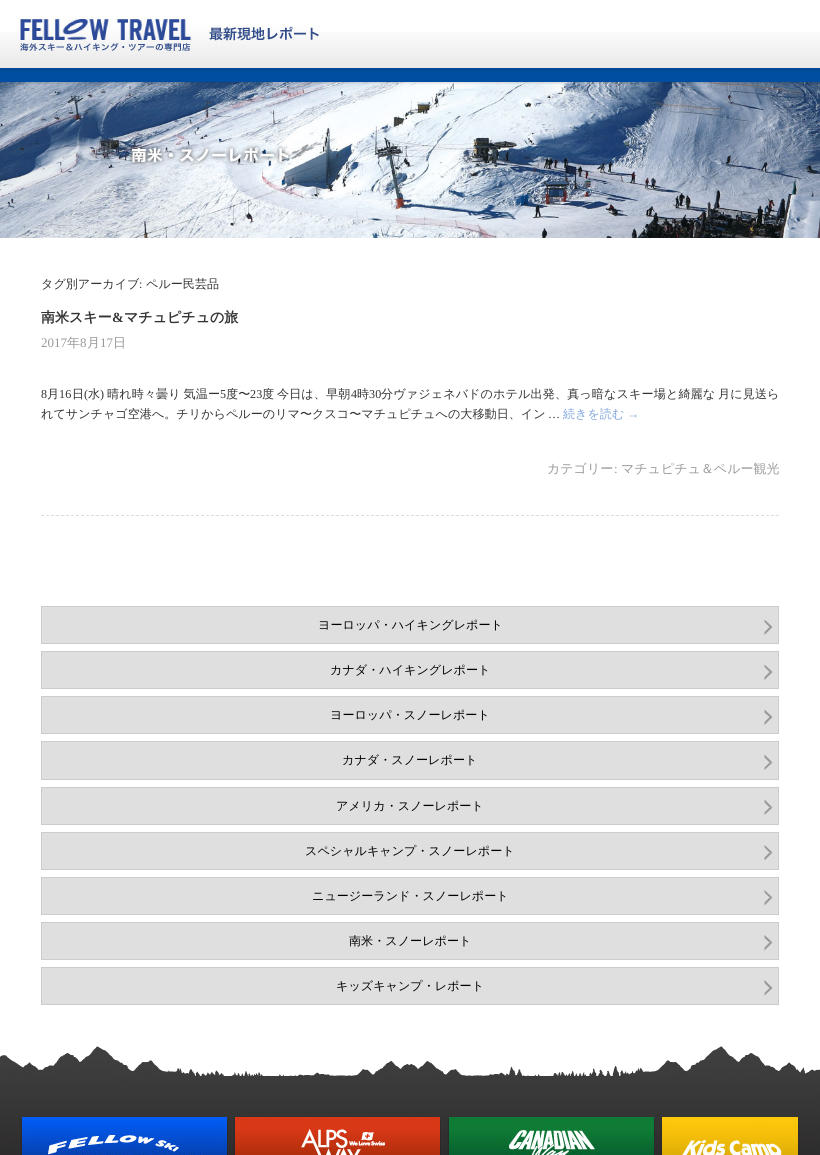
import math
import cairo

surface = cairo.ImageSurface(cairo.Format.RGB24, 820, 1155)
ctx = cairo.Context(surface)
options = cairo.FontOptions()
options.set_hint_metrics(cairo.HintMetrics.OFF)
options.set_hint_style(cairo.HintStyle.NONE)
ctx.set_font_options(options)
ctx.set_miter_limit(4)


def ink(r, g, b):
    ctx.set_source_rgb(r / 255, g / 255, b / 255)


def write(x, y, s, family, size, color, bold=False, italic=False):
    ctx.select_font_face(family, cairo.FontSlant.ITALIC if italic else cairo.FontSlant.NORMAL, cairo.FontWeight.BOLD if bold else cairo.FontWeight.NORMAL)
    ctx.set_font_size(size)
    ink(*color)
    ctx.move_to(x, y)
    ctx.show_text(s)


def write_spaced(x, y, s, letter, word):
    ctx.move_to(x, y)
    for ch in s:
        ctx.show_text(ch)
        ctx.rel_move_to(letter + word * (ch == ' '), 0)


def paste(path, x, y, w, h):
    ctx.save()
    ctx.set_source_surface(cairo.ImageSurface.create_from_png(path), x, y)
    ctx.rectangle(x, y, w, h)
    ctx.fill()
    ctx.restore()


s1 = dict(family="WenQuanYi Zen Hei Medium", size=12.1, color=(51, 51, 51))
s2 = dict(family="Liberation Serif", size=12.1, color=(51, 51, 51))
s3 = dict(family="WenQuanYi Zen Hei", size=14, color=(51, 51, 51), bold=True)
s4 = dict(family="Liberation Serif", size=14, color=(51, 51, 51), bold=True)
s5 = dict(family="Liberation Serif", size=13, color=(153, 153, 153))
s6 = dict(family="WenQuanYi Zen Hei Medium", size=13, color=(153, 153, 153))
s7 = dict(family="WenQuanYi Zen Hei Medium", size=12.1, color=(128, 167, 220))
s8 = dict(family="Liberation Serif", size=12.1, color=(128, 167, 220))
s9 = dict(family="WenQuanYi Zen Hei Medium", size=12.1, color=(0, 0, 0))

ink(255, 255, 255)
ctx.paint()
paste("pic1.png", 0, 32, 820, 50)
paste("pic2.png", 16, 16, 304, 40)
paste("pic3.png", 0, 82, 820, 156)
write(41, 288, "タグ別アーカイブ", **s1)
write(139, 288, ":", **s2)
write(146, 288, "ペルー民芸品", **s1)
ctx.new_path()
ctx.move_to(41, 515.5)
ctx.line_to(779, 515.5)
ink(221, 221, 221)
ctx.set_line_width(1)
ctx.set_dash([3, 2])
ctx.stroke()
write(41, 322, "南米スキー", **s3)
write(112, 322, "&", **s4)
write(124, 322, "マチュピチュの旅", **s3)
write(41, 347, "2017", **s5)
write(67, 347, "年", **s6)
write(80, 347, "8", **s5)
write(87, 347, "月", **s6)
write(100, 347, "17", **s5)
write(113, 347, "日", **s6)
ctx.select_font_face("Liberation Serif")
ctx.set_font_size(12.1)
ink(51, 51, 51)
write_spaced(41, 398, "8", 0.1, 0)
ctx.select_font_face("WenQuanYi Zen Hei Medium")
write_spaced(47, 398, "月", 0.1, 0)
ctx.select_font_face("Liberation Serif")
write_spaced(59, 398, "16", 0.1, 0)
ctx.select_font_face("WenQuanYi Zen Hei Medium")
write_spaced(72, 398, "日", 0.1, 0)
ctx.select_font_face("Liberation Serif")
write_spaced(84, 398, "(", 0.1, 0)
ctx.select_font_face("WenQuanYi Zen Hei Medium")
write_spaced(88, 398, "水", 0.1, 0)
ctx.select_font_face("Liberation Serif")
write_spaced(100, 398, ")", 0.1, 0)
ctx.select_font_face("WenQuanYi Zen Hei Medium")
write_spaced(107, 398, "晴れ時々曇り 気温ー", 0.1, -1)
ctx.select_font_face("Liberation Serif")
write_spaced(220, 398, "5", 0.1, 0)
ctx.select_font_face("WenQuanYi Zen Hei Medium")
write_spaced(226, 398, "度〜", 0.1, 0)
ctx.select_font_face("Liberation Serif")
write_spaced(250, 398, "23", 0.1, 0)
ctx.select_font_face("WenQuanYi Zen Hei Medium")
write_spaced(262, 398, "度 今日は、早朝", 0.1, -1)
ctx.select_font_face("Liberation Serif")
write_spaced(351, 398, "4", 0.1, 0)
ctx.select_font_face("WenQuanYi Zen Hei Medium")
write_spaced(357, 398, "時", 0.1, 0)
ctx.select_font_face("Liberation Serif")
write_spaced(369, 398, "30", 0.1, 0)
ctx.select_font_face("WenQuanYi Zen Hei Medium")
write_spaced(381, 398, "分ヴァジェネバドのホテル出発、真っ暗なスキー場と綺麗な 月に見送ら", 0.1, -1)
write(41, 418, "れてサンチャゴ空港へ。チリからペルーのリマ〜クスコ〜マチュピチュへの大移動日、イン", **s1)
write(548, 418, "…", **s2)
write(563, 418, "続きを読む", **s7)
write(627, 418, "→", **s8)
write(547, 473, "カテゴリー", **s6)
write(614, 473, ":", **s5)
write(621, 473, "マチュピチュ＆ペルー観光", **s6)
ink(223, 223, 223)
ctx.rectangle(41.5, 606.5, 737, 37)
ctx.fill_preserve()
ink(204, 204, 204)
ctx.set_dash([])
ctx.stroke()
write(318, 629, "ヨーロッパ・ハイキングレポート", **s9)
ink(153, 153, 153)
ctx.new_path()
ctx.move_to(764.5, 619.5)
ctx.line_to(772.5, 627)
ctx.line_to(769.5, 627)
ctx.line_to(764.5, 622)
ctx.close_path()
ctx.move_to(772.5, 627)
ctx.line_to(764.5, 635)
ctx.line_to(764.5, 632)
ctx.line_to(769.5, 627)
ctx.close_path()
ctx.fill()
ink(223, 223, 223)
ctx.rectangle(41.5, 651.5, 737, 37)
ctx.fill_preserve()
ink(204, 204, 204)
ctx.stroke()
write(330, 674, "カナダ・ハイキングレポート", **s9)
ink(153, 153, 153)
ctx.new_path()
ctx.move_to(764.5, 664.5)
ctx.line_to(772.5, 672)
ctx.line_to(769.5, 672)
ctx.line_to(764.5, 667)
ctx.close_path()
ctx.move_to(772.5, 672)
ctx.line_to(764.5, 680)
ctx.line_to(764.5, 677)
ctx.line_to(769.5, 672)
ctx.close_path()
ctx.fill()
ink(223, 223, 223)
ctx.rectangle(41.5, 696.5, 737, 37)
ctx.fill_preserve()
ink(204, 204, 204)
ctx.stroke()
write(330, 719, "ヨーロッパ・スノーレポート", **s9)
ink(153, 153, 153)
ctx.new_path()
ctx.move_to(764.5, 709.5)
ctx.line_to(772.5, 717)
ctx.line_to(769.5, 717)
ctx.line_to(764.5, 712.5)
ctx.close_path()
ctx.move_to(772.5, 717)
ctx.line_to(764.5, 725)
ctx.line_to(764.5, 722)
ctx.line_to(769.5, 717)
ctx.close_path()
ctx.fill()
ink(223, 223, 223)
ctx.rectangle(41.5, 741.5, 737, 38)
ctx.fill_preserve()
ink(204, 204, 204)
ctx.stroke()
write(342, 764, "カナダ・スノーレポート", **s9)
ink(153, 153, 153)
ctx.new_path()
ctx.move_to(764.5, 754.5)
ctx.line_to(772.5, 762.5)
ctx.line_to(769.5, 762.5)
ctx.line_to(764.5, 757.5)
ctx.close_path()
ctx.fill()
ctx.new_path()
ctx.move_to(772.5, 762.5)
ctx.line_to(764.5, 770)
ctx.line_to(764.5, 767.5)
ctx.line_to(769.5, 762.5)
ctx.close_path()
ctx.fill()
ink(223, 223, 223)
ctx.rectangle(41.5, 787.5, 737, 37)
ctx.fill_preserve()
ink(204, 204, 204)
ctx.stroke()
write(336, 810, "アメリカ・スノーレポート", **s9)
ink(153, 153, 153)
ctx.new_path()
ctx.move_to(764.5, 799.5)
ctx.line_to(772.5, 807.5)
ctx.line_to(769.5, 807.5)
ctx.line_to(764.5, 802.5)
ctx.close_path()
ctx.fill()
ctx.new_path()
ctx.move_to(772.5, 807.5)
ctx.line_to(764.5, 815)
ctx.line_to(764.5, 812.5)
ctx.line_to(769.5, 807.5)
ctx.close_path()
ctx.fill()
ink(223, 223, 223)
ctx.rectangle(41.5, 832.5, 737, 37)
ctx.fill_preserve()
ink(204, 204, 204)
ctx.stroke()
write(305, 855, "スペシャルキャンプ・スノーレポート", **s9)
ink(153, 153, 153)
ctx.new_path()
ctx.move_to(764.5, 845)
ctx.line_to(772.5, 852.5)
ctx.line_to(769.5, 852.5)
ctx.line_to(764.5, 847.5)
ctx.close_path()
ctx.fill()
ctx.new_path()
ctx.move_to(772.5, 852.5)
ctx.line_to(764.5, 860.5)
ctx.line_to(764.5, 857.5)
ctx.line_to(769.5, 852.5)
ctx.close_path()
ctx.fill()
ink(223, 223, 223)
ctx.rectangle(41.5, 877.5, 737, 37)
ctx.fill_preserve()
ink(204, 204, 204)
ctx.stroke()
write(312, 900, "ニュージーランド・スノーレポート", **s9)
ink(153, 153, 153)
ctx.new_path()
ctx.move_to(764.5, 890)
ctx.line_to(772.5, 897.5)
ctx.line_to(769.5, 897.5)
ctx.line_to(764.5, 892.5)
ctx.close_path()
ctx.fill()
ctx.new_path()
ctx.move_to(772.5, 897.5)
ctx.line_to(764.5, 905.5)
ctx.line_to(764.5, 902.5)
ctx.line_to(769.5, 897.5)
ctx.close_path()
ctx.fill()
ink(223, 223, 223)
ctx.rectangle(41.5, 922.5, 737, 37)
ctx.fill_preserve()
ink(204, 204, 204)
ctx.stroke()
write(349, 945, "南米・スノーレポート", **s9)
ink(153, 153, 153)
ctx.new_path()
ctx.move_to(764.5, 935)
ctx.line_to(772.5, 942.5)
ctx.line_to(769.5, 942.5)
ctx.line_to(764.5, 938)
ctx.close_path()
ctx.fill()
ctx.new_path()
ctx.move_to(772.5, 942.5)
ctx.line_to(764.5, 950.5)
ctx.line_to(764.5, 947.5)
ctx.line_to(769.5, 942.5)
ctx.close_path()
ctx.fill()
ink(223, 223, 223)
ctx.rectangle(41.5, 967.5, 737, 37)
ctx.fill_preserve()
ink(204, 204, 204)
ctx.stroke()
write(336, 990, "キッズキャンプ・レポート", **s9)
ink(153, 153, 153)
ctx.new_path()
ctx.move_to(764.5, 980)
ctx.line_to(772.5, 988)
ctx.line_to(769.5, 988)
ctx.line_to(764.5, 983)
ctx.close_path()
ctx.move_to(772.5, 988)
ctx.line_to(764.5, 995.5)
ctx.line_to(764.5, 993)
ctx.line_to(769.5, 988)
ctx.close_path()
ctx.fill()
paste("pic4.png", 0, 1082, 820, 73)
paste("pic5.png", 0, 1046, 820, 36)
paste("pic6.png", 20, 1116, 208, 39)
paste("pic7.png", 233, 1116, 208, 39)
paste("pic8.png", 447, 1116, 208, 39)
paste("pic9.png", 660, 1116, 141, 39)
surface.write_to_png("screenshot.png")
